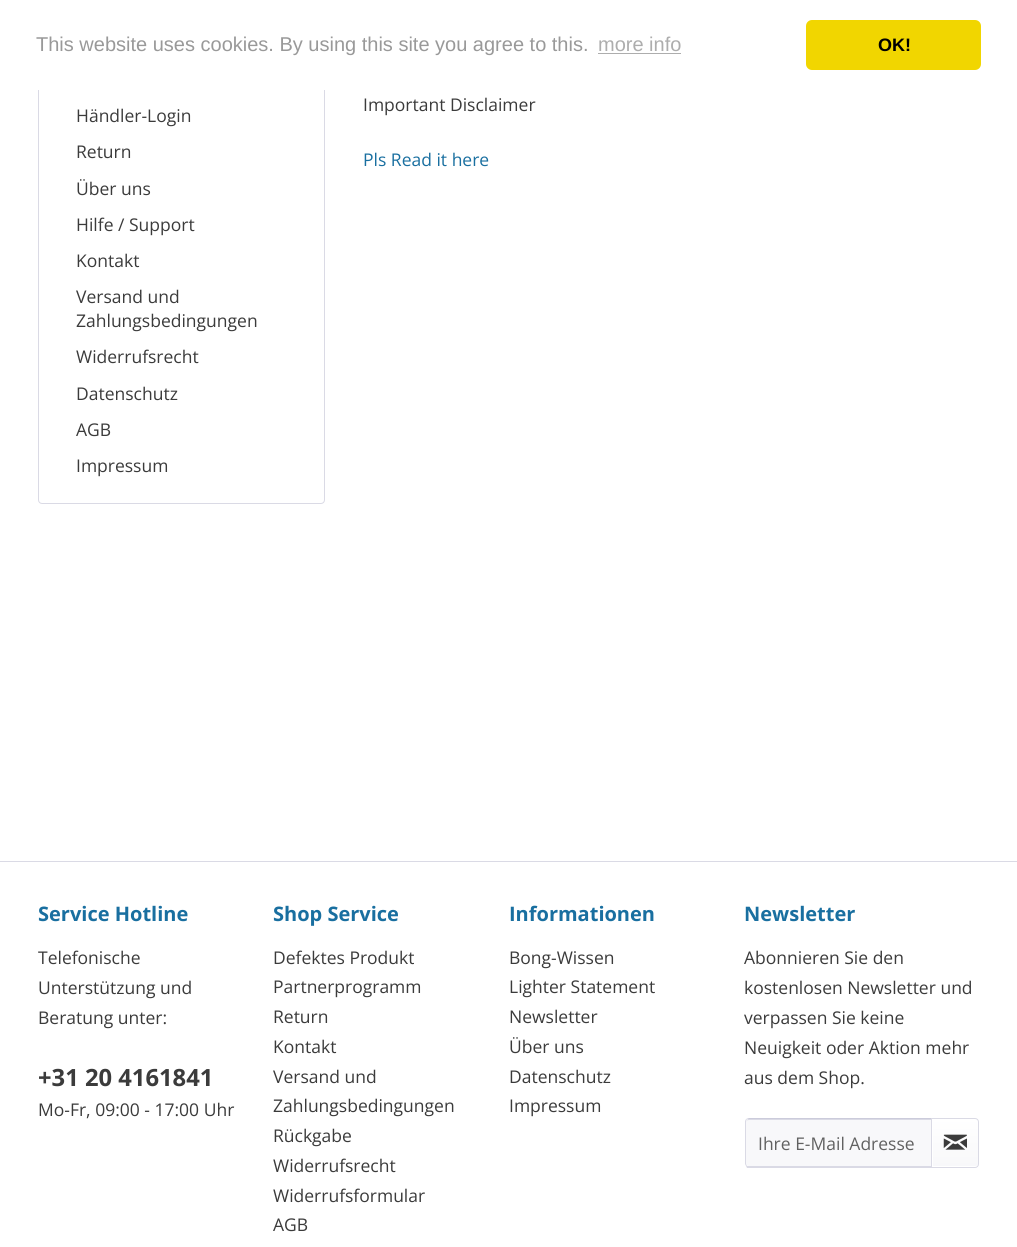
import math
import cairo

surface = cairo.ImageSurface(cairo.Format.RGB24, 1017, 1247)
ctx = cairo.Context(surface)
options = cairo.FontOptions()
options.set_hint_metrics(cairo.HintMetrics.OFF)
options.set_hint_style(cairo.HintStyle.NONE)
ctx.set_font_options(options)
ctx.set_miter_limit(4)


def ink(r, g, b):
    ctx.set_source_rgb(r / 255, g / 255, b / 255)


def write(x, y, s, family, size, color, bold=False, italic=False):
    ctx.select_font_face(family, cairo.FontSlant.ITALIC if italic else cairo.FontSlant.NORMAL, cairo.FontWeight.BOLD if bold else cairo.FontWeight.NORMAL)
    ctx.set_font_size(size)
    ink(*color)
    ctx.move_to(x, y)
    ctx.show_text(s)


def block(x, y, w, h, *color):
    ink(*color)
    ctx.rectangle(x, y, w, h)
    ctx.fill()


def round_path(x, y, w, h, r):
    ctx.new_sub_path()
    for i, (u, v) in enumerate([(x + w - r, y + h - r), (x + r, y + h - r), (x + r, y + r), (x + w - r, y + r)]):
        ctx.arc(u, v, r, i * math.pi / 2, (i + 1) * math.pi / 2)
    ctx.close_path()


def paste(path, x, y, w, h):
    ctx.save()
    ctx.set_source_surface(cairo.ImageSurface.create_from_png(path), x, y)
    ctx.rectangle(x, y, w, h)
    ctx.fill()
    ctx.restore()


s1 = dict(family="Liberation Sans", size=20, color=(153, 153, 153))
s2 = dict(family="Liberation Sans", size=20, color=(173, 173, 173))
s3 = dict(family="Liberation Sans", size=18, color=(0, 0, 0), bold=True)
s4 = dict(family="Open Sans", size=17.5, color=(59, 59, 59))
s5 = dict(family="Open Sans", size=17.5, color=(25, 111, 160))
s6 = dict(family="Open Sans", size=20, color=(25, 111, 160), bold=True)
s7 = dict(family="Open Sans", size=23.75, color=(59, 59, 59), bold=True)
s8 = dict(family="Open Sans", size=17.5, color=(97, 97, 97))

ink(255, 255, 255)
ctx.paint()
round_path(38.5, 18.5, 286, 485, 3.5)
ink(218, 218, 229)
ctx.set_line_width(1)
ctx.stroke()
block(38, 18, 287, 72, 255, 255, 255)
write(36, 51, "This website uses cookies. By using this site you agree to this.", **s1)
write(598, 51, "more info", **s2)
block(598, 53, 83, 1, 173, 173, 173)
ink(241, 214, 0)
round_path(806, 20, 175, 50, 6)
ctx.fill()
write(878, 51, "OK!", **s3)
write(76, 122, "Händler-Login", **s4)
write(76, 158, "Return", **s4)
write(76, 195, "Über uns", **s4)
write(76, 231, "Hilfe / Support", **s4)
write(76, 267, "Kontakt", **s4)
write(76, 303, "Versand und", **s4)
write(76, 327, "Zahlungsbedingungen", **s4)
write(76, 363, "Widerrufsrecht", **s4)
write(76, 400, "Datenschutz", **s4)
write(76, 436, "AGB", **s4)
write(76, 472, "Impressum", **s4)
write(363, 111, "Important Disclaimer", **s4)
write(363, 166, "Pls Read it here", **s5)
block(0, 861, 1017, 1, 218, 218, 229)
write(38, 921, "Service Hotline", **s6)
write(38, 964, "Telefonische", **s4)
write(38, 994, "Unterstützung und", **s4)
write(38, 1024, "Beratung unter:", **s4)
write(38, 1086, "+31 20 4161841", **s7)
write(38, 1116, "Mo-Fr, 09:00 - 17:00 Uhr", **s4)
write(273, 921, "Shop Service", **s6)
write(273, 964, "Defektes Produkt", **s4)
write(273, 993, "Partnerprogramm", **s4)
write(273, 1023, "Return", **s4)
write(273, 1053, "Kontakt", **s4)
write(273, 1083, "Versand und", **s4)
write(273, 1112, "Zahlungsbedingungen", **s4)
write(273, 1142, "Rückgabe", **s4)
write(273, 1172, "Widerrufsrecht", **s4)
write(273, 1202, "Widerrufsformular", **s4)
write(273, 1231, "AGB", **s4)
write(509, 921, "Informationen", **s6)
write(509, 964, "Bong-Wissen", **s4)
write(509, 993, "Lighter Statement", **s4)
write(509, 1023, "Newsletter", **s4)
write(509, 1053, "Über uns", **s4)
write(509, 1083, "Datenschutz", **s4)
write(509, 1112, "Impressum", **s4)
write(744, 921, "Newsletter", **s6)
write(744, 964, "Abonnieren Sie den", **s4)
write(744, 994, "kostenlosen Newsletter und", **s4)
write(744, 1024, "verpassen Sie keine", **s4)
write(744, 1054, "Neuigkeit oder Aktion mehr", **s4)
write(744, 1084, "aus dem Shop.", **s4)
ink(248, 248, 250)
ctx.new_path()
ctx.move_to(748.5, 1119)
ctx.line_to(931, 1119)
ctx.line_to(931, 1166)
ctx.line_to(748.5, 1166)
ctx.curve_to(747, 1166, 746, 1165, 746, 1163.5)
ctx.line_to(746, 1121.5)
ctx.curve_to(746, 1120, 747, 1119, 748.5, 1119)
ctx.close_path()
ctx.fill()
ink(218, 218, 229)
ctx.new_path()
ctx.move_to(749, 1120)
ctx.line_to(931, 1120)
ctx.line_to(931, 1119)
ctx.line_to(748, 1119)
ctx.line_to(747, 1120)
ctx.line_to(746, 1122)
ctx.curve_to(746, 1121, 747, 1120, 749, 1120)
ctx.close_path()
ctx.fill()
ink(203, 203, 219)
ctx.new_path()
ctx.move_to(749, 1118)
ctx.line_to(746, 1119)
ctx.line_to(747, 1119)
ctx.line_to(749, 1119)
ctx.line_to(931, 1119)
ctx.line_to(932, 1118)
ctx.close_path()
ctx.fill()
ink(218, 218, 229)
ctx.new_path()
ctx.move_to(747, 1168)
ctx.line_to(746, 1166)
ctx.line_to(747, 1166)
ctx.line_to(749, 1166)
ctx.line_to(931, 1166)
ctx.line_to(932, 1167)
ctx.line_to(932, 1168)
ctx.close_path()
ctx.fill()
ctx.new_path()
ctx.move_to(745, 1121)
ctx.line_to(745, 1164)
ctx.line_to(746, 1166)
ctx.line_to(747, 1166)
ctx.line_to(746, 1164)
ctx.line_to(746, 1121)
ctx.line_to(747, 1119)
ctx.line_to(746, 1119)
ctx.close_path()
ctx.fill()
write(758, 1150, "Ihre E-Mail Adresse", **s8)
gradient = cairo.LinearGradient(955, 1119, 955, 1166)
gradient.add_color_stop_rgba(0, 1, 1, 1, 1)
gradient.add_color_stop_rgba(1, 0.973, 0.973, 0.98, 1)
ctx.set_source(gradient)
ctx.new_path()
ctx.move_to(933, 1119)
ctx.line_to(975.5, 1119)
ctx.curve_to(977, 1119, 978, 1120, 978, 1121.5)
ctx.line_to(978, 1163.5)
ctx.curve_to(978, 1165, 977, 1166, 975.5, 1166)
ctx.line_to(933, 1166)
ctx.close_path()
ctx.fill()
ctx.new_path()
ctx.move_to(931.5, 1118.5)
ctx.line_to(975, 1118.5)
ctx.curve_to(977, 1118.5, 978.5, 1120, 978.5, 1122)
ctx.line_to(978.5, 1164)
ctx.curve_to(978.5, 1166, 977, 1167.5, 975, 1167.5)
ctx.line_to(931.5, 1167.5)
ctx.close_path()
ink(218, 218, 229)
ctx.stroke()
paste("pic1.png", 943, 1134, 24, 16)
surface.write_to_png("screenshot.png")
